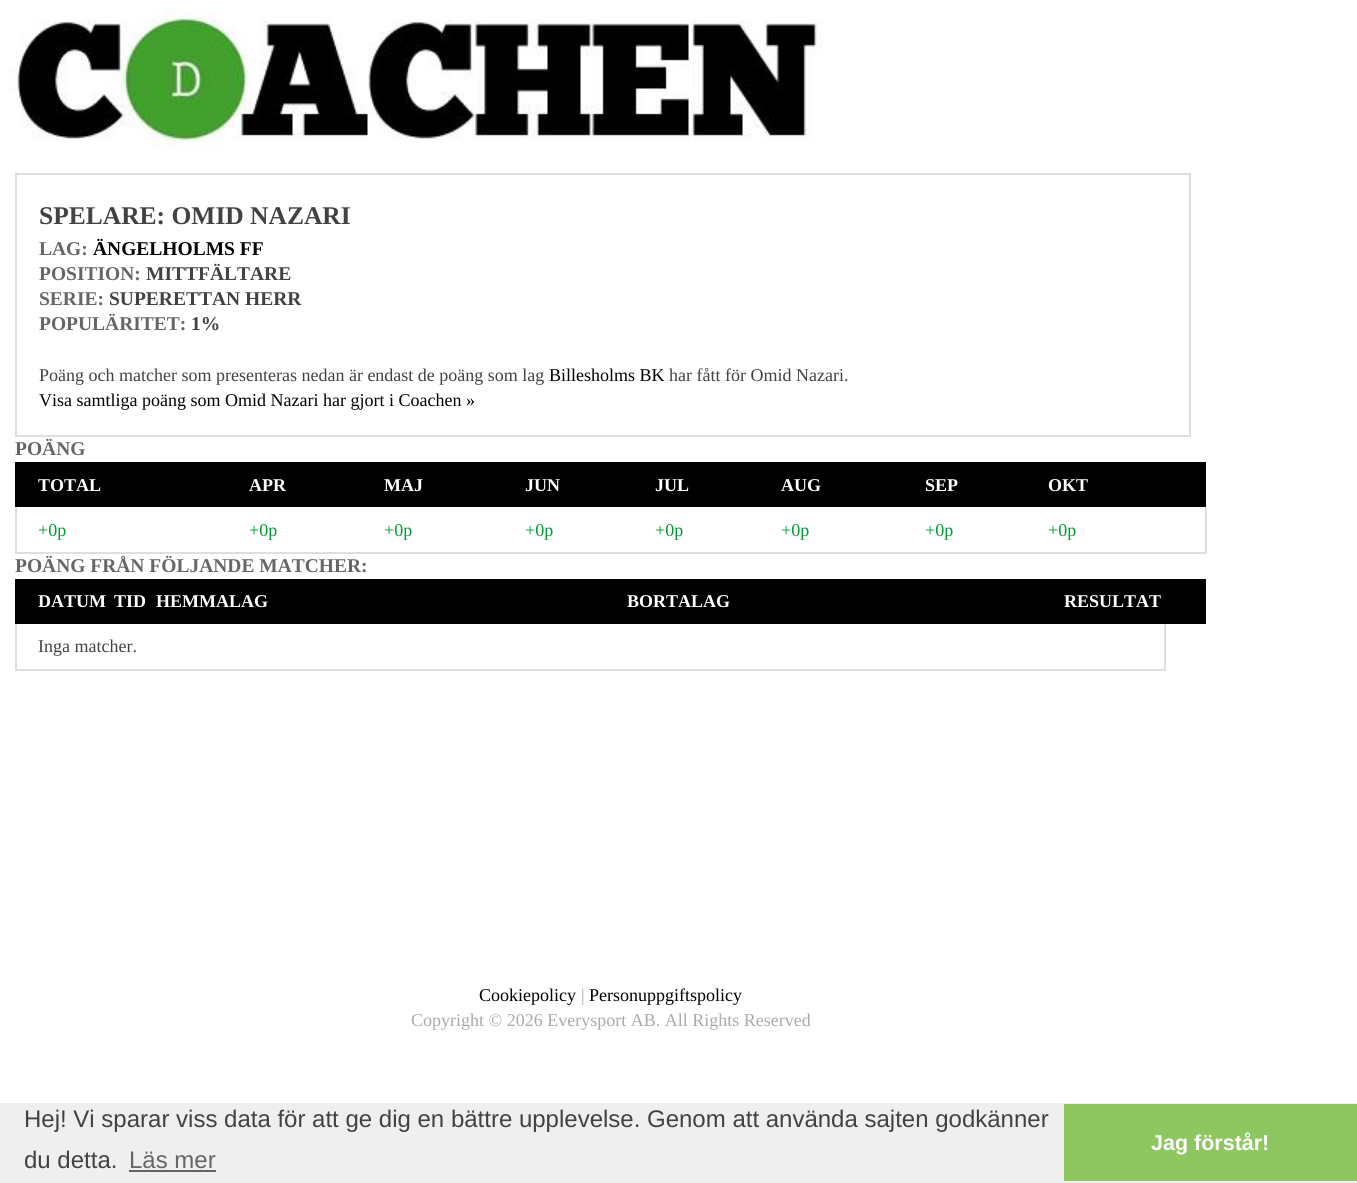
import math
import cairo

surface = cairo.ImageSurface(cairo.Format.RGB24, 1357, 1183)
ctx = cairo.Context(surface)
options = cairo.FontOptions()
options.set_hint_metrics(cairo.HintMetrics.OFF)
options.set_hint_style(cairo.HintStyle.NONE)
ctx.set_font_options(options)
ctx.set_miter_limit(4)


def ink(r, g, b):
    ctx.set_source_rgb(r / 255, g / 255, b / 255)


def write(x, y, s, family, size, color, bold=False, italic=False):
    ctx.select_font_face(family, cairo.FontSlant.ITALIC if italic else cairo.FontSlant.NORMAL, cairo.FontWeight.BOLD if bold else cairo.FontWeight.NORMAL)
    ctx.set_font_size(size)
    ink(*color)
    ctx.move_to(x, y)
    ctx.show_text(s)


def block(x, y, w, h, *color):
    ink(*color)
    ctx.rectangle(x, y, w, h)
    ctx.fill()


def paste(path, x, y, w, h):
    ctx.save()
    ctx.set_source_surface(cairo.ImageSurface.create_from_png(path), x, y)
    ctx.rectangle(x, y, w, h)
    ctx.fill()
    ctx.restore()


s1 = dict(family="Liberation Serif", size=25.5, color=(66, 66, 66), bold=True)
s2 = dict(family="Liberation Serif", size=19.5, color=(102, 102, 102), bold=True)
s3 = dict(family="Liberation Serif", size=19.5, color=(0, 0, 0), bold=True)
s4 = dict(family="Liberation Serif", size=19.5, color=(66, 66, 66), bold=True)
s5 = dict(family="Liberation Serif", size=18, color=(66, 66, 66))
s6 = dict(family="Liberation Serif", size=18, color=(0, 0, 0))
s7 = dict(family="Liberation Serif", size=18, color=(255, 255, 255), bold=True)
s8 = dict(family="Liberation Serif", size=18, color=(0, 153, 51))
s9 = dict(family="Liberation Serif", size=18, color=(170, 170, 170))
s10 = dict(family="Liberation Sans", size=24, color=(66, 66, 66))
s11 = dict(family="Liberation Sans", size=24, color=(102, 102, 102))
s12 = dict(family="Liberation Sans", size=21.5, color=(255, 255, 255), bold=True)

ink(255, 255, 255)
ctx.paint()
paste("pic1.png", 9, 7, 814, 143)
ctx.rectangle(16, 174, 1174, 262)
ink(222, 223, 224)
ctx.stroke()
write(39, 224, "SPELARE: OMID NAZARI", **s1)
write(39, 255, "LAG:", **s2)
write(93, 255, "ÄNGELHOLMS FF", **s3)
write(39, 280, "POSITION:", **s2)
write(146, 280, "MITTFÄLTARE", **s4)
write(39, 305, "SERIE:", **s2)
write(109, 305, "SUPERETTAN HERR", **s4)
write(39, 330, "POPULÄRITET:", **s2)
write(191, 330, "1%", **s4)
write(39, 381, "Poäng och matcher som presenteras nedan är endast de poäng som lag", **s5)
write(549, 381, "Billesholms BK", **s6)
write(669, 381, "har fått för Omid Nazari.", **s5)
write(39, 406, "Visa samtliga poäng som Omid Nazari har gjort i Coachen »", **s6)
write(15, 455, "POÄNG", **s2)
block(15, 462, 1191, 45, 0, 0, 0)
write(38, 491, "TOTAL", **s7)
write(249, 491, "APR", **s7)
write(384, 491, "MAJ", **s7)
write(525, 491, "JUN", **s7)
write(655, 491, "JUL", **s7)
write(781, 491, "AUG", **s7)
write(925, 491, "SEP", **s7)
write(1048, 491, "OKT", **s7)
block(15, 552, 1173, 2, 223, 223, 223)
block(15, 507, 2, 47, 222, 223, 224)
block(1205, 507, 2, 47, 222, 223, 224)
block(1188, 552, 18, 2, 223, 223, 223)
write(38, 536, "+0p", **s8)
write(249, 536, "+0p", **s8)
write(384, 536, "+0p", **s8)
write(525, 536, "+0p", **s8)
write(655, 536, "+0p", **s8)
write(781, 536, "+0p", **s8)
write(925, 536, "+0p", **s8)
write(1048, 536, "+0p", **s8)
write(15, 572, "POÄNG FRÅN FÖLJANDE MATCHER:", **s2)
block(15, 579, 1191, 45, 0, 0, 0)
write(38, 607, "DATUM", **s7)
write(114, 607, "TID", **s7)
write(156, 607, "HEMMALAG", **s7)
write(627, 607, "BORTALAG", **s7)
write(1064, 607, "RESULTAT", **s7)
block(15, 669, 1044, 2, 223, 223, 223)
block(15, 624, 2, 47, 222, 223, 224)
block(1164, 624, 2, 47, 222, 223, 224)
block(1059, 669, 107, 2, 223, 223, 223)
write(38, 652, "Inga matcher.", **s5)
write(479, 1001, "Cookiepolicy", **s6)
write(581, 1001, "|", **s9)
write(589, 1001, "Personuppgiftspolicy", **s6)
write(411, 1026, "Copyright © 2026 Everysport AB. All Rights Reserved", **s9)
block(0, 1103, 1357, 80, 239, 239, 239)
write(24, 1127, "Hej! Vi sparar viss data för att ge dig en bättre upplevelse. Genom att använda sajten godkänner", **s10)
write(24, 1168, "du detta.", **s10)
write(129, 1168, "Läs mer", **s11)
block(129, 1170, 87, 2, 99, 99, 99)
block(1064, 1104, 293, 77, 142, 199, 96)
write(1151, 1150, "Jag förstår!", **s12)
surface.write_to_png("screenshot.png")
